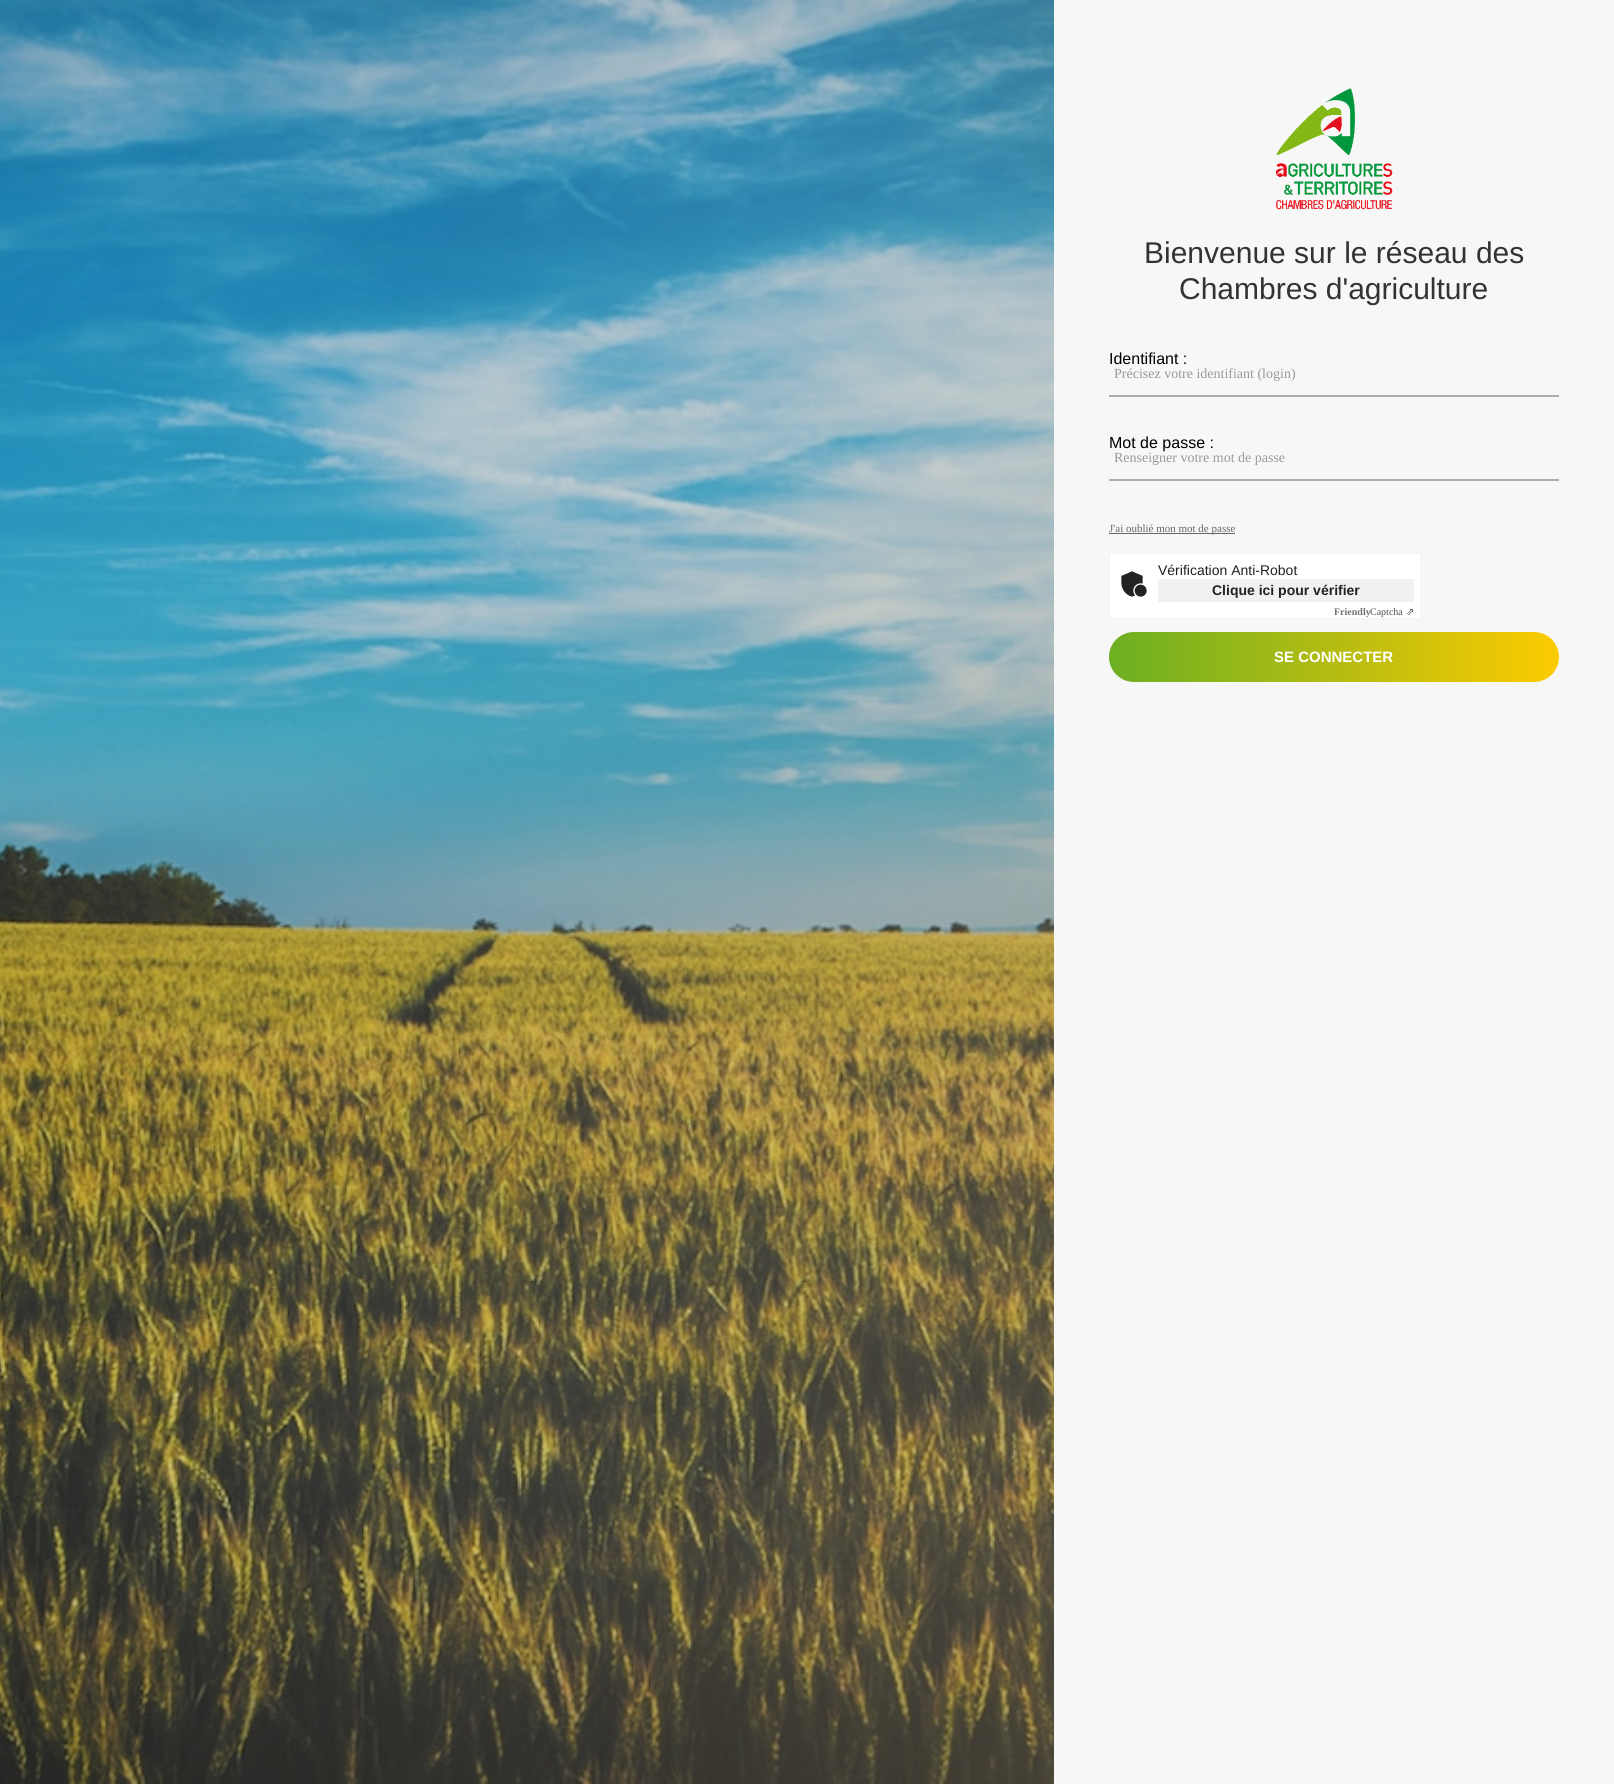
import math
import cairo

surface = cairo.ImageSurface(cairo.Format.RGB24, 1614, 1784)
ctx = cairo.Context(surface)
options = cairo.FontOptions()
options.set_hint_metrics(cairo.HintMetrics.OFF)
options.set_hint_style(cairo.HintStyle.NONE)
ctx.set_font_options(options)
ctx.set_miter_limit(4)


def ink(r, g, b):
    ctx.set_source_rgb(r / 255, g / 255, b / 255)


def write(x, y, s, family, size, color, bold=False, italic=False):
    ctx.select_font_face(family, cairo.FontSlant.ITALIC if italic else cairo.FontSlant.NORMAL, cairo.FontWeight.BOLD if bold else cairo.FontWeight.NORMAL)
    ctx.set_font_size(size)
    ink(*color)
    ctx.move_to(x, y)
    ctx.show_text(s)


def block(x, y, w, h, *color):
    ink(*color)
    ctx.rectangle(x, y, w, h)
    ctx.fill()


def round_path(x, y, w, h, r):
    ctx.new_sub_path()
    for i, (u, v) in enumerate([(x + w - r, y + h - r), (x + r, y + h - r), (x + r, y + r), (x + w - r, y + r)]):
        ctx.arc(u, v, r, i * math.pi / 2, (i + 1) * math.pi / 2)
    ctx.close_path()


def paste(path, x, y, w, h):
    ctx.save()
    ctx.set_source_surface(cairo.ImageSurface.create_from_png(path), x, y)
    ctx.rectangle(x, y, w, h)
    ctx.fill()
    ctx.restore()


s1 = dict(family="Liberation Sans", size=30, color=(51, 51, 51))
s2 = dict(family="Liberation Sans", size=16, color=(0, 0, 0))
s3 = dict(family="Liberation Serif", size=14, color=(153, 153, 153))
s4 = dict(family="Liberation Serif", size=11, color=(102, 102, 102))
s5 = dict(family="Liberation Sans", size=14, color=(34, 34, 34))
s6 = dict(family="Liberation Sans", size=14, color=(34, 34, 34), bold=True)
s7 = dict(family="Liberation Serif", size=10, color=(78, 78, 78))
s8 = dict(family="Liberation Serif", size=10, color=(114, 114, 114), bold=True)
s9 = dict(family="DejaVu Sans", size=10, color=(78, 78, 78))
s10 = dict(family="Liberation Sans", size=15, color=(255, 255, 255), bold=True)

ink(247, 247, 247)
ctx.paint()
paste("pic1.png", 0, 0, 1054, 1784)
paste("pic2.png", 1275, 88, 118, 122)
write(1144, 263, "Bienvenue sur le réseau des", **s1)
write(1179, 299, "Chambres d'agriculture", **s1)
block(1109, 395, 450, 2, 173, 173, 173)
write(1109, 364, "Identifiant :", **s2)
write(1114, 378, "Précisez votre identifiant (login)", **s3)
block(1109, 479, 450, 2, 173, 173, 173)
write(1109, 448, "Mot de passe :", **s2)
write(1114, 462, "Renseigner votre mot de passe", **s3)
block(1109, 533, 126, 1, 102, 102, 102)
write(1109, 532, "J'ai oublié mon mot de passe", **s4)
ink(255, 255, 255)
ctx.rectangle(1109.5, 553.5, 311, 65)
ctx.fill_preserve()
ink(244, 244, 244)
ctx.set_line_width(1)
ctx.stroke()
paste("pic3.png", 1121, 571, 26, 26)
write(1158, 575, "Vérification Anti-Robot", **s5)
block(1158, 579, 256, 23, 241, 241, 241)
write(1212, 595, "Clique ici pour vérifier", **s6)
write(1370, 615, "Captcha", **s7)
write(1334, 615, "Friendly", **s8)
write(1406, 615, "⇗", **s9)
gradient = cairo.LinearGradient(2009, 657, 659, 657)
gradient.add_color_stop_rgba(0, 0.996, 0.796, 0, 1)
gradient.add_color_stop_rgba(0.33, 0.996, 0.796, 0, 1)
gradient.add_color_stop_rgba(0.67, 0.416, 0.686, 0.137, 1)
gradient.add_color_stop_rgba(1, 0.745, 0.839, 0, 1)
ctx.set_source(gradient)
round_path(1109, 632, 450, 50, 25)
ctx.fill()
write(1274, 662, "SE CONNECTER", **s10)
surface.write_to_png("screenshot.png")
